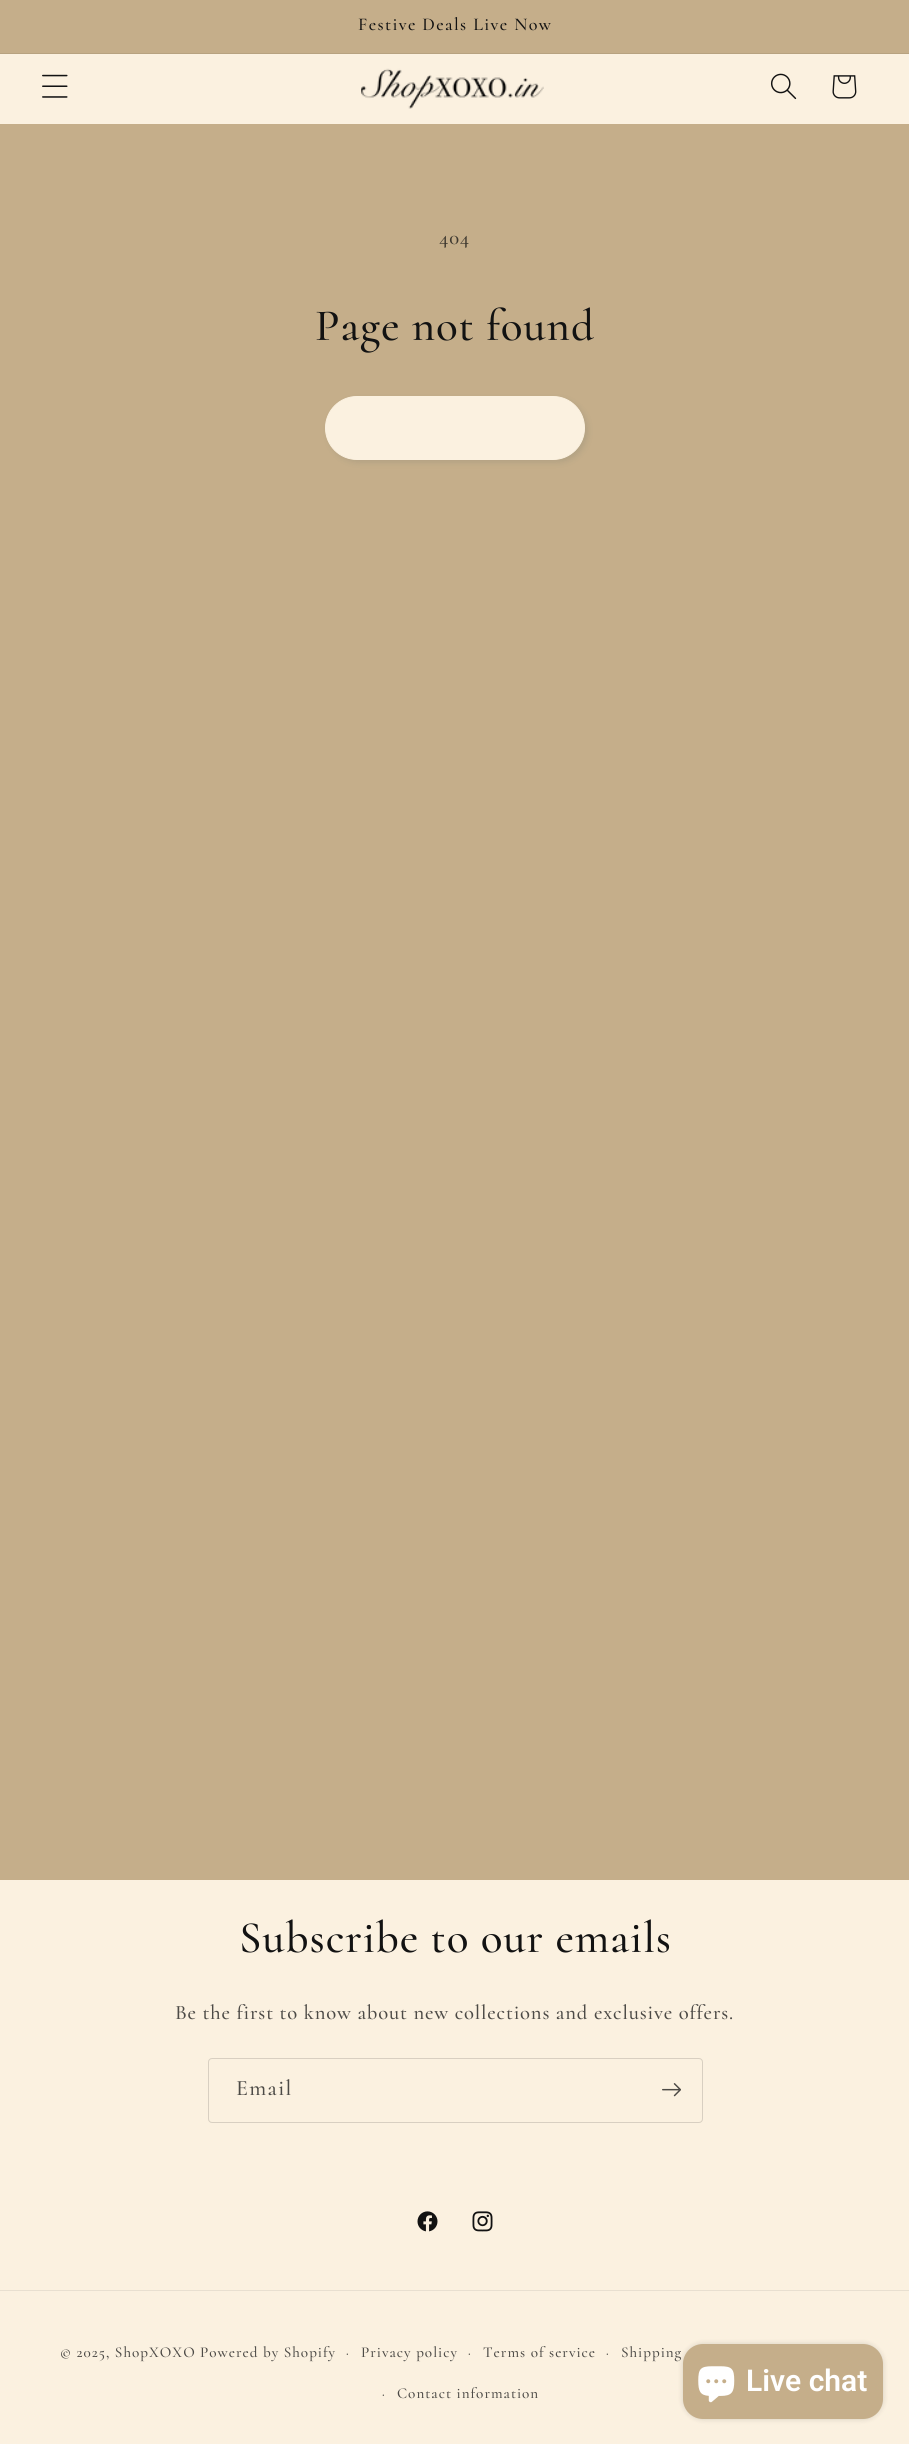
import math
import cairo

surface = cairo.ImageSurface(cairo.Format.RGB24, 909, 2444)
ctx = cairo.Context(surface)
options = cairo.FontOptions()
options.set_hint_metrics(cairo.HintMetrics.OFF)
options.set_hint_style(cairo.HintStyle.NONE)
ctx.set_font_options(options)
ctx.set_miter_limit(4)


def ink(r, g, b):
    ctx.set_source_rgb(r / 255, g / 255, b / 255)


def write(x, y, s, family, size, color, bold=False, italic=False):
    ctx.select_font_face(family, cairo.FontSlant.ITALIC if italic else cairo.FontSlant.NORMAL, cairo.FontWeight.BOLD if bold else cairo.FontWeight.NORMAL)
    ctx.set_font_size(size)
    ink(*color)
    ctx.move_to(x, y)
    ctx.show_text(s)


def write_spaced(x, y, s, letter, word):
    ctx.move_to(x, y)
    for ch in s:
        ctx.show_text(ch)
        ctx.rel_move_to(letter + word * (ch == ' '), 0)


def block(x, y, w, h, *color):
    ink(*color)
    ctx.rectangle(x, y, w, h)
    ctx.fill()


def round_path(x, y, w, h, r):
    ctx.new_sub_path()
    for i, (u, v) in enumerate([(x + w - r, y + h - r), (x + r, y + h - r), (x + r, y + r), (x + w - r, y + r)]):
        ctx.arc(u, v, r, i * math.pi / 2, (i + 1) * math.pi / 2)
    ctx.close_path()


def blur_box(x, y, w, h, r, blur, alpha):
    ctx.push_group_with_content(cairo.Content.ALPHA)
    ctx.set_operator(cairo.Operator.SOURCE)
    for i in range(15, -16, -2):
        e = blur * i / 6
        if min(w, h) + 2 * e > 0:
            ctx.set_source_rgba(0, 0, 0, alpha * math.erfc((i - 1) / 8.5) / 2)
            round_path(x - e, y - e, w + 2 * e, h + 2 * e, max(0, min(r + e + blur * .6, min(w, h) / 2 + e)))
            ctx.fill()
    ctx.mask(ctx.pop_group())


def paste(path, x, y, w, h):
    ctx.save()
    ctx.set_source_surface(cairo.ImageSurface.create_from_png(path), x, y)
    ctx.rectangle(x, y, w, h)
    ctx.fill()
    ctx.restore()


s1 = dict(family="Roboto SemiBold", size=30, color=(255, 255, 255))

ink(197, 174, 138)
ctx.paint()
block(0, 53, 909, 1, 183, 162, 128)
ctx.select_font_face("Cormorant Medium")
ctx.set_font_size(18)
ink(18, 18, 18)
write_spaced(358, 30, "Festive Deals Live Now", 1.4, 0)
block(0, 54, 909, 70, 251, 241, 224)
paste("pic1.png", 42, 74, 26, 24)
paste("pic2.png", 361, 68, 183, 41)
paste("pic3.png", 770, 73, 27, 27)
paste("pic4.png", 832, 75, 25, 24)
ctx.set_font_size(20.6)
ink(63, 57, 48)
write_spaced(439, 244, "404", 0.83, 0)
ctx.set_font_size(45)
ink(18, 18, 18)
write_spaced(315, 340, "Page not found", 0.9, 0)
ink(16, 57, 72)
blur_box(328, 399, 260, 64, 32, 3, 0.1)
ink(251, 241, 224)
round_path(325.5, 396.5, 259, 63, 31.5)
ctx.fill_preserve()
ctx.set_line_width(1)
ctx.stroke()
block(0, 1880, 909, 564, 251, 241, 224)
ink(18, 18, 18)
write_spaced(239, 1952, "Subscribe to our emails", 0.9, 0)
ctx.set_font_size(20.6)
ink(76, 74, 70)
write_spaced(175, 2019, "Be the first to know about new collections and exclusive offers.", 0.83, 0)
round_path(208.5, 2058.5, 494, 64, 3.5)
ctx.set_source_rgba(0.071, 0.071, 0.071, 0.15)
ctx.stroke()
ctx.set_font_size(22)
ink(76, 74, 70)
write_spaced(236, 2095, "Email", 1.4, 0)
paste("pic5.png", 662, 2083, 19, 14)
paste("pic6.png", 417, 2211, 21, 21)
paste("pic7.png", 472, 2211, 21, 21)
block(0, 2290, 909, 1, 232, 223, 208)
ctx.set_font_size(15.1)
ink(76, 74, 70)
write_spaced(60, 2357, "© 2025, ShopXOXO", 1, 0)
write_spaced(200, 2357, "Powered by Shopify", 1, 0)
ctx.set_font_size(14)
write_spaced(346, 2357, "·", 1, 0)
ctx.set_font_size(15.1)
write_spaced(361, 2357, "Privacy policy", 1, 0)
ctx.set_font_size(14)
write_spaced(468, 2357, "·", 1, 0)
ctx.set_font_size(15.1)
write_spaced(483, 2357, "Terms of service", 1, 0)
ctx.set_font_size(14)
write_spaced(606, 2357, "·", 1, 0)
ctx.set_font_size(15.1)
write_spaced(621, 2357, "Shipping", 1, 0)
ctx.set_font_size(14)
write_spaced(382, 2398, "·", 1, 0)
ctx.set_font_size(15.1)
write_spaced(397, 2398, "Contact information", 1, 0)
ink(0, 0, 0)
blur_box(683, 2344, 200, 75, 20, 3, 0.15)
ink(197, 174, 138)
round_path(683, 2344, 200, 75, 20)
ctx.fill()
paste("pic8.png", 698, 2366, 37, 37)
write(746, 2391, "Live chat", **s1)
surface.write_to_png("screenshot.png")
